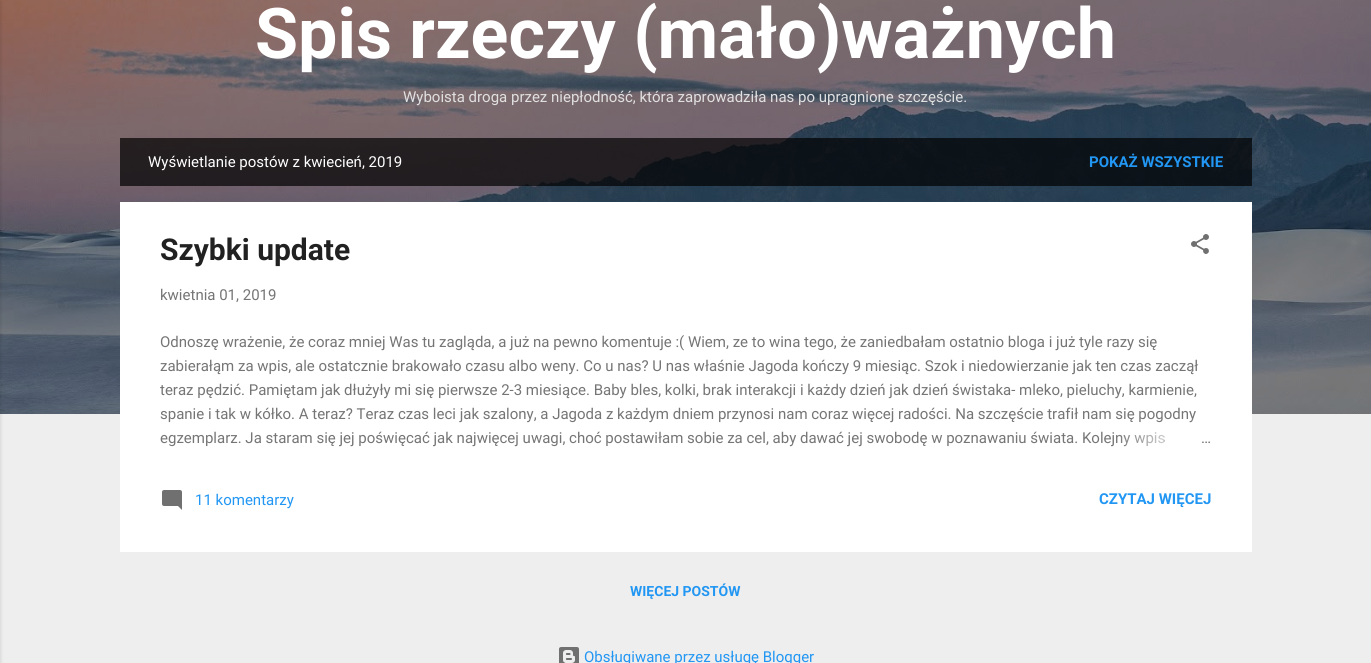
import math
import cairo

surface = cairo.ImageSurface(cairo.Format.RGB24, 1371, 663)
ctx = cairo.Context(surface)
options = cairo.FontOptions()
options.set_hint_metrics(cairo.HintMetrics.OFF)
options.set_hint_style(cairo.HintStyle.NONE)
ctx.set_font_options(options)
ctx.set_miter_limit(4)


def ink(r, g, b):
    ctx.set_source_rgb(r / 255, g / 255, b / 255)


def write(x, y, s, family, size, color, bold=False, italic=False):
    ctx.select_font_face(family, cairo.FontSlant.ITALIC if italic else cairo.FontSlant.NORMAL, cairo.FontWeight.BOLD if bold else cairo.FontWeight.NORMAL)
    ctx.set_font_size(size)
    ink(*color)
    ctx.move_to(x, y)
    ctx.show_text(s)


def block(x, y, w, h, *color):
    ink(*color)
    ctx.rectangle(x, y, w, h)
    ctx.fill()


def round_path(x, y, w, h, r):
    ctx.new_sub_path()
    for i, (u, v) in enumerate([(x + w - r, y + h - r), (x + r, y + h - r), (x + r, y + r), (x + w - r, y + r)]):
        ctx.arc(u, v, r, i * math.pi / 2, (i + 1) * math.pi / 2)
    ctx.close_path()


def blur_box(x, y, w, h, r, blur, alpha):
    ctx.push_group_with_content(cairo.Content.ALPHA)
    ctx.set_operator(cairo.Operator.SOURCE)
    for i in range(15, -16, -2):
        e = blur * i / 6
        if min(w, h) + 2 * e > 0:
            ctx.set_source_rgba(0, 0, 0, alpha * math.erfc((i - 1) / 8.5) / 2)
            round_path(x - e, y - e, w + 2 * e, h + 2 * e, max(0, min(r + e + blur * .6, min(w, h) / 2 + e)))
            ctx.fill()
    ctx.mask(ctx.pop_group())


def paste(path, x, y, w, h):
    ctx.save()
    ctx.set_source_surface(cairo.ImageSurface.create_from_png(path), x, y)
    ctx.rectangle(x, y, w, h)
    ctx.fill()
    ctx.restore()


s1 = dict(family="Roboto", size=70, color=(255, 255, 255), bold=True)
s2 = dict(family="Roboto", size=15, color=(225, 224, 225))
s3 = dict(family="Roboto", size=15, color=(255, 255, 255))
s4 = dict(family="Roboto", size=15, color=(33, 150, 243), bold=True)
s5 = dict(family="Roboto", size=30, color=(33, 33, 33), bold=True)
s6 = dict(family="Roboto", size=15, color=(117, 117, 117))
s7 = dict(family="Roboto", size=15, color=(33, 150, 243))
s8 = dict(family="Roboto", size=14, color=(33, 150, 243), bold=True)

ink(238, 238, 238)
ctx.paint()
paste("pic1.png", 0, 0, 1371, 414)
ink(0, 0, 0)
blur_box(-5, 1, 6, 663, 0, 1.5, 0.1)
write(255, 58, "Spis rzeczy (mało)ważnych", **s1)
write(403, 102, "Wyboista droga przez niepłodność, która zaprowadziła nas po upragnione szczęście.", **s2)
ctx.set_source_rgba(0, 0, 0, 0.7)
ctx.rectangle(120, 138, 1132, 48)
ctx.fill()
write(148, 167, "Wyświetlanie postów z kwiecień, 2019", **s3)
write(1089, 167, "POKAŻ WSZYSTKIE", **s4)
block(120, 202, 1132, 350, 255, 255, 255)
write(160, 260, "Szybki update", **s5)
paste("pic2.png", 1191, 234, 18, 20)
write(160, 300, "kwietnia 01, 2019", **s6)
write(160, 347, "Odnoszę wrażenie, że coraz mniej Was tu zagląda, a już na pewno komentuje :( Wiem, ze to wina tego, że zaniedbałam ostatnio bloga i już tyle razy się", **s6)
write(160, 371, "zabierałąm za wpis, ale ostatcznie brakowało czasu albo weny. Co u nas? U nas właśnie Jagoda kończy 9 miesiąc. Szok i niedowierzanie jak ten czas zaczął", **s6)
write(160, 395, "teraz pędzić. Pamiętam jak dłużyły mi się pierwsze 2-3 miesiące. Baby bles, kolki, brak interakcji i każdy dzień jak dzień świstaka- mleko, pieluchy, karmienie,", **s6)
write(160, 419, "spanie i tak w kółko. A teraz? Teraz czas leci jak szalony, a Jagoda z każdym dniem przynosi nam coraz więcej radości. Na szczęście trafił nam się pogodny", **s6)
write(160, 443, "egzemplarz. Ja staram się jej poświęcać jak najwięcej uwagi, choć postawiłam sobie za cel, aby dawać jej swobodę w poznawaniu świata. Kolejny wpis", **s6)
gradient = cairo.LinearGradient(1212, 438, 1116, 438)
gradient.add_color_stop_rgba(0, 1, 1, 1, 1)
gradient.add_color_stop_rgba(0.2, 1, 1, 1, 1)
gradient.add_color_stop_rgba(1, 1, 1, 1, 0)
ctx.set_source(gradient)
ctx.rectangle(1118, 432, 46, 15)
ctx.fill()
write(1201, 443, "…", **s6)
paste("pic3.png", 162, 490, 20, 20)
write(195, 505, "11 komentarzy", **s7)
write(1099, 504, "CZYTAJ WIĘCEJ", **s4)
write(630, 596, "WIĘCEJ POSTÓW", **s8)
paste("pic4.png", 559, 647, 20, 16)
write(584, 662, "Obsługiwane przez usługę Blogger", **s7)
surface.write_to_png("screenshot.png")
